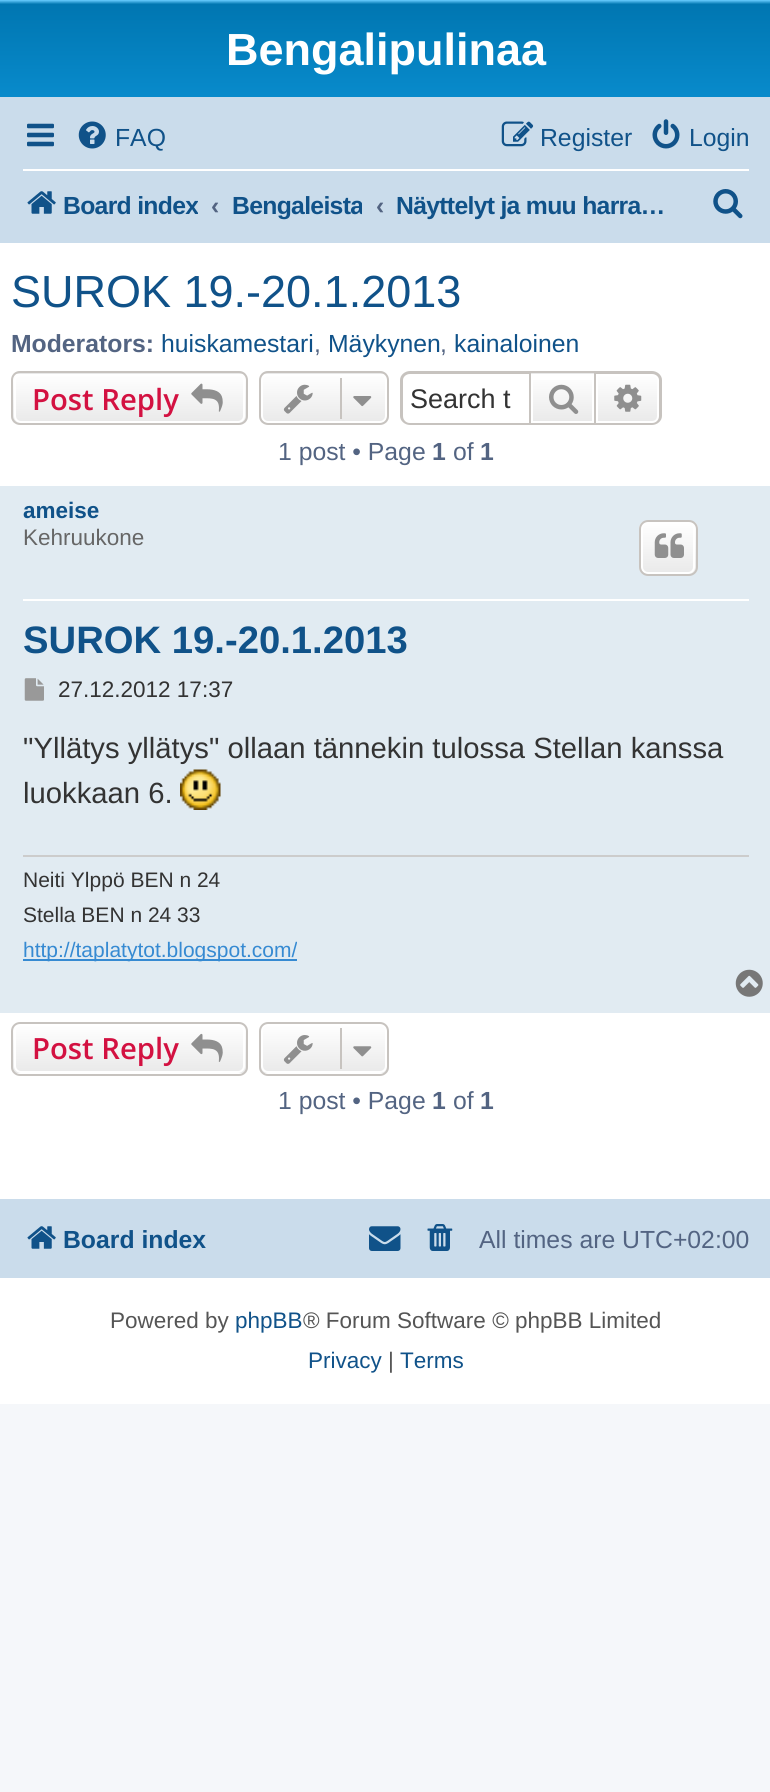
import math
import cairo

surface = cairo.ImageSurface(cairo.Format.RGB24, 770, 1792)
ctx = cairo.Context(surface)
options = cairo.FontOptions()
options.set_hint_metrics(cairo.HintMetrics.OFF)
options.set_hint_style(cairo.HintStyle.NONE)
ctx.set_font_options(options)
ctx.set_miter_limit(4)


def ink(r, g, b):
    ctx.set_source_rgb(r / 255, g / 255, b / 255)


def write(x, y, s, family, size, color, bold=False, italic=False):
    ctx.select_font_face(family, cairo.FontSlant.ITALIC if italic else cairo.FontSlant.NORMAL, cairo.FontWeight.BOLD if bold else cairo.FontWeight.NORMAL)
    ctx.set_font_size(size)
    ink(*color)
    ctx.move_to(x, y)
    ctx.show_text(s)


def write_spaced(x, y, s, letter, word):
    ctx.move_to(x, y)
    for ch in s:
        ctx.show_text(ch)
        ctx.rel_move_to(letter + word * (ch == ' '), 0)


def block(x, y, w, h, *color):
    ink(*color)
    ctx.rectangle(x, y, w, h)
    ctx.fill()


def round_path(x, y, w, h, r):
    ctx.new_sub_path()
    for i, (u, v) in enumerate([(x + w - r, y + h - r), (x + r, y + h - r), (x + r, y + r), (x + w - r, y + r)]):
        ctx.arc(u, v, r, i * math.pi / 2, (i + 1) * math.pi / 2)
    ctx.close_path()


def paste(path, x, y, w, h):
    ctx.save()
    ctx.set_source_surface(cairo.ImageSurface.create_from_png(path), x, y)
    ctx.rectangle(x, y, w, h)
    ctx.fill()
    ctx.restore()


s1 = dict(family="Liberation Sans", size=45, color=(255, 255, 255), bold=True)
s2 = dict(family="Liberation Sans", size=24.75, color=(16, 82, 137))
s3 = dict(family="Liberation Sans", size=24.75, color=(83, 100, 130), bold=True)
s4 = dict(family="Liberation Sans", size=45, color=(16, 82, 137))
s5 = dict(family="Liberation Sans", size=24.75, color=(83, 100, 130))
s6 = dict(family="Open Sans SemiBold", size=29.25, color=(211, 17, 65))
s7 = dict(family="Liberation Sans", size=27, color=(51, 51, 51))
s8 = dict(family="Liberation Sans", size=22.5, color=(16, 82, 137), bold=True)
s9 = dict(family="Liberation Sans", size=22.5, color=(102, 102, 102))
s10 = dict(family="Liberation Sans", size=38.25, color=(16, 82, 137), bold=True)
s11 = dict(family="Liberation Sans", size=22.5, color=(51, 51, 51))
s12 = dict(family="Liberation Sans", size=29.25, color=(51, 51, 51))
s13 = dict(family="Liberation Sans", size=21, color=(51, 51, 51))
s14 = dict(family="Liberation Sans", size=21, color=(54, 138, 210))
s15 = dict(family="Liberation Sans", size=24.75, color=(16, 82, 137), bold=True)
s16 = dict(family="Liberation Sans", size=22.5, color=(85, 85, 85))
s17 = dict(family="Liberation Sans", size=22.5, color=(16, 82, 137))

ink(245, 247, 250)
ctx.paint()
block(0, 243, 770, 1161, 255, 255, 255)
gradient = cairo.LinearGradient(386, 0, 386, 207)
gradient.add_color_stop_rgba(0, 0.416, 0.808, 1, 1)
gradient.add_color_stop_rgba(0.02, 0, 0.463, 0.694, 1)
gradient.add_color_stop_rgba(1, 0.071, 0.639, 0.922, 1)
ctx.set_source(gradient)
ctx.rectangle(0, 0, 770, 97)
ctx.fill()
write(226, 65, "Bengalipulinaa", **s1)
block(0, 97, 770, 146, 202, 220, 235)
paste("pic1.png", 27, 123, 27, 24)
paste("pic2.png", 78, 121, 28, 28)
write(115, 146, "FAQ", **s2)
paste("pic3.png", 501, 121, 33, 26)
write(540, 146, "Register", **s2)
paste("pic4.png", 652, 119, 28, 30)
write(689, 146, "Login", **s2)
block(23, 169, 726, 2, 255, 255, 255)
paste("pic5.png", 27, 191, 29, 23)
ctx.save()
ctx.rectangle(23, 178, 175, 54)
ctx.clip()
ctx.select_font_face("Liberation Sans", cairo.FontSlant.NORMAL, cairo.FontWeight.BOLD)
ink(16, 82, 137)
write_spaced(63, 214, "Board index", -0.7, 0)
ctx.restore()
write(211, 214, "‹", **s3)
ctx.save()
ctx.rectangle(232, 178, 130, 54)
ctx.clip()
ink(16, 82, 137)
write_spaced(232, 214, "Bengaleista", -0.7, 0)
ctx.restore()
write(376, 214, "‹", **s3)
ink(16, 82, 137)
write_spaced(396, 214, "Näyttelyt ja muu harra…", -0.7, 0)
paste("pic6.png", 713, 189, 30, 30)
write(11, 307, "SUROK 19.-20.1.2013", **s4)
write(11, 352, "Moderators:", **s3)
write(161, 352, "huiskamestari", **s2)
write(314, 352, ",", **s5)
write(328, 352, "Mäykynen", **s2)
write(440, 352, ",", **s5)
write(454, 352, "kainaloinen", **s2)
ctx.save()
round_path(11, 371, 237, 54, 9)
ctx.clip()
gradient = cairo.LinearGradient(129, 324, 129, 374)
gradient.add_color_stop_rgba(0, 1, 1, 1, 1)
gradient.add_color_stop_rgba(1, 0.914, 0.914, 0.914, 1)
ctx.set_source(gradient)
ctx.rectangle(11, 371, 237, 3)
ctx.fill()
gradient = cairo.LinearGradient(129, 374, 129, 423)
gradient.add_color_stop_rgba(0, 1, 1, 1, 1)
gradient.add_color_stop_rgba(1, 0.914, 0.914, 0.914, 1)
ctx.set_source(gradient)
ctx.rectangle(11, 374, 237, 49)
ctx.fill()
ctx.restore()
round_path(15, 375, 229, 47, 6)
ink(255, 255, 255)
ctx.stroke()
round_path(12, 372, 235, 52, 8)
ink(199, 195, 191)
ctx.stroke()
write(32, 410, "Post Reply", **s6)
paste("pic7.png", 191, 383, 32, 29)
ctx.save()
round_path(259, 371, 130, 54, 9)
ctx.clip()
gradient = cairo.LinearGradient(324, 324, 324, 374)
gradient.add_color_stop_rgba(0, 1, 1, 1, 1)
gradient.add_color_stop_rgba(1, 0.914, 0.914, 0.914, 1)
ctx.set_source(gradient)
ctx.rectangle(259, 371, 130, 3)
ctx.fill()
gradient = cairo.LinearGradient(324, 374, 324, 423)
gradient.add_color_stop_rgba(0, 1, 1, 1, 1)
gradient.add_color_stop_rgba(1, 0.914, 0.914, 0.914, 1)
ctx.set_source(gradient)
ctx.rectangle(259, 374, 130, 49)
ctx.fill()
ctx.restore()
round_path(262, 375, 124, 47, 6)
ink(255, 255, 255)
ctx.stroke()
round_path(260, 372, 128, 52, 8)
ink(199, 195, 191)
ctx.stroke()
paste("pic8.png", 283, 384, 30, 30)
block(340, 378, 2, 41, 199, 195, 191)
paste("pic9.png", 353, 396, 19, 11)
ctx.set_fill_rule(cairo.FillRule.EVEN_ODD)
ctx.new_path()
ctx.move_to(410, 371)
ctx.line_to(529, 371)
ctx.line_to(529, 425)
ctx.line_to(410, 425)
ctx.curve_to(405, 425, 400, 421, 400, 416)
ctx.line_to(400, 380)
ctx.curve_to(400, 375, 405, 371, 410, 371)
ctx.close_path()
ctx.move_to(410, 374)
ctx.line_to(529, 374)
ctx.line_to(529, 423)
ctx.line_to(410, 423)
ctx.curve_to(406, 423, 403, 420, 403, 416)
ctx.line_to(403, 380)
ctx.curve_to(403, 377, 406, 374, 410, 374)
ctx.close_path()
ctx.fill()
write(410, 408, "Search t", **s7)
block(531, 373, 63, 1, 233, 233, 233)
gradient = cairo.LinearGradient(563, 374, 563, 423)
gradient.add_color_stop_rgba(0, 1, 1, 1, 1)
gradient.add_color_stop_rgba(1, 0.914, 0.914, 0.914, 1)
ctx.set_source(gradient)
ctx.rectangle(533, 380, 59, 41)
ctx.fill()
ctx.rectangle(530, 372, 65, 52)
ink(199, 195, 191)
ctx.stroke()
paste("pic10.png", 549, 384, 30, 30)
gradient = cairo.LinearGradient(628, 374, 628, 423)
gradient.add_color_stop_rgba(0, 1, 1, 1, 1)
gradient.add_color_stop_rgba(1, 0.914, 0.914, 0.914, 1)
ctx.set_source(gradient)
ctx.new_path()
ctx.move_to(597, 375)
ctx.line_to(652, 375)
ctx.curve_to(655.5, 375, 658, 377.5, 658, 381)
ctx.line_to(658, 416)
ctx.curve_to(658, 419.5, 655.5, 422, 652, 422)
ctx.line_to(597, 422)
ctx.close_path()
ctx.fill_preserve()
ink(255, 255, 255)
ctx.stroke()
ink(199, 195, 191)
ctx.new_path()
ctx.move_to(596, 371)
ctx.line_to(652, 371)
ctx.curve_to(657, 371, 662, 375, 662, 380)
ctx.line_to(662, 416)
ctx.curve_to(662, 421, 657, 425, 652, 425)
ctx.line_to(596, 425)
ctx.close_path()
ctx.move_to(596, 374)
ctx.line_to(652, 374)
ctx.curve_to(656, 374, 659, 377, 659, 380)
ctx.line_to(659, 416)
ctx.curve_to(659, 420, 656, 423, 652, 423)
ctx.line_to(596, 423)
ctx.close_path()
ctx.fill()
paste("pic11.png", 614, 384, 28, 28)
write(278, 460, "1 post • Page", **s5)
write(432, 460, "1", **s3)
write(453, 460, "of", **s5)
write(480, 460, "1", **s3)
block(0, 486, 770, 527, 225, 235, 242)
block(23, 599, 726, 2, 255, 255, 255)
write(23, 518, "ameise", **s8)
write(23, 545, "Kehruukone", **s9)
ctx.save()
ctx.set_fill_rule(cairo.FillRule.WINDING)
round_path(639, 520, 59, 56, 9)
ctx.clip()
gradient = cairo.LinearGradient(668, 522, 668, 574)
gradient.add_color_stop_rgba(0, 1, 1, 1, 1)
gradient.add_color_stop_rgba(1, 0.914, 0.914, 0.914, 1)
ctx.set_source(gradient)
ctx.rectangle(639, 522, 59, 52)
ctx.fill()
ctx.restore()
round_path(642, 523, 52, 50, 6)
ink(255, 255, 255)
ctx.stroke()
round_path(640, 521, 57, 54, 8)
ink(199, 195, 191)
ctx.stroke()
paste("pic12.png", 654, 533, 30, 25)
write(23, 653, "SUROK 19.-20.1.2013", **s10)
paste("pic13.png", 24, 678, 20, 23)
write(58, 697, "27.12.2012 17:37", **s11)
write(23, 758, "\"Yllätys yllätys\" ollaan tännekin tulossa Stellan kanssa", **s12)
write(23, 803, "luokkaan 6.", **s12)
paste("pic14.png", 180, 769, 41, 41)
block(23, 855, 726, 2, 204, 204, 204)
write(23, 887, "Neiti Ylppö BEN n 24", **s13)
write(23, 922, "Stella BEN n 24 33", **s13)
block(23, 959, 274, 2, 54, 138, 210)
write(23, 957, "http://taplatytot.blogspot.com/", **s14)
paste("pic15.png", 735, 969, 28, 28)
ctx.save()
ctx.set_fill_rule(cairo.FillRule.WINDING)
round_path(11, 1022, 237, 54, 9)
ctx.clip()
gradient = cairo.LinearGradient(129, 1024, 129, 1073)
gradient.add_color_stop_rgba(0, 1, 1, 1, 1)
gradient.add_color_stop_rgba(1, 0.914, 0.914, 0.914, 1)
ctx.set_source(gradient)
ctx.rectangle(11, 1024, 237, 49)
ctx.fill()
ctx.restore()
round_path(15, 1025, 229, 47, 6)
ink(255, 255, 255)
ctx.stroke()
round_path(12, 1023, 235, 52, 8)
ink(199, 195, 191)
ctx.stroke()
write(32, 1059, "Post Reply", **s6)
paste("pic16.png", 191, 1033, 32, 29)
ctx.save()
ctx.set_fill_rule(cairo.FillRule.WINDING)
round_path(259, 1022, 130, 54, 9)
ctx.clip()
gradient = cairo.LinearGradient(324, 1024, 324, 1073)
gradient.add_color_stop_rgba(0, 1, 1, 1, 1)
gradient.add_color_stop_rgba(1, 0.914, 0.914, 0.914, 1)
ctx.set_source(gradient)
ctx.rectangle(259, 1024, 130, 49)
ctx.fill()
ctx.restore()
round_path(262, 1025, 124, 47, 6)
ink(255, 255, 255)
ctx.stroke()
round_path(260, 1023, 128, 52, 8)
ink(199, 195, 191)
ctx.stroke()
paste("pic17.png", 283, 1035, 30, 29)
block(340, 1028, 2, 41, 199, 195, 191)
paste("pic18.png", 353, 1046, 19, 11)
write(278, 1109, "1 post • Page", **s5)
write(432, 1109, "1", **s3)
write(453, 1109, "of", **s5)
write(480, 1109, "1", **s3)
block(0, 1199, 770, 79, 202, 220, 235)
paste("pic5.png", 27, 1226, 29, 23)
write(63, 1248, "Board index", **s15)
paste("pic19.png", 369, 1226, 32, 25)
paste("pic20.png", 427, 1224, 26, 27)
write(479, 1248, "All times are UTC+02:00", **s5)
write(110, 1328, "Powered by", **s16)
write(235, 1328, "phpBB", **s17)
write(303, 1328, "® Forum Software © phpBB Limited", **s16)
write(308, 1368, "Privacy", **s17)
write(388, 1368, "|", **s16)
write(400, 1368, "Terms", **s17)
surface.write_to_png("screenshot.png")
